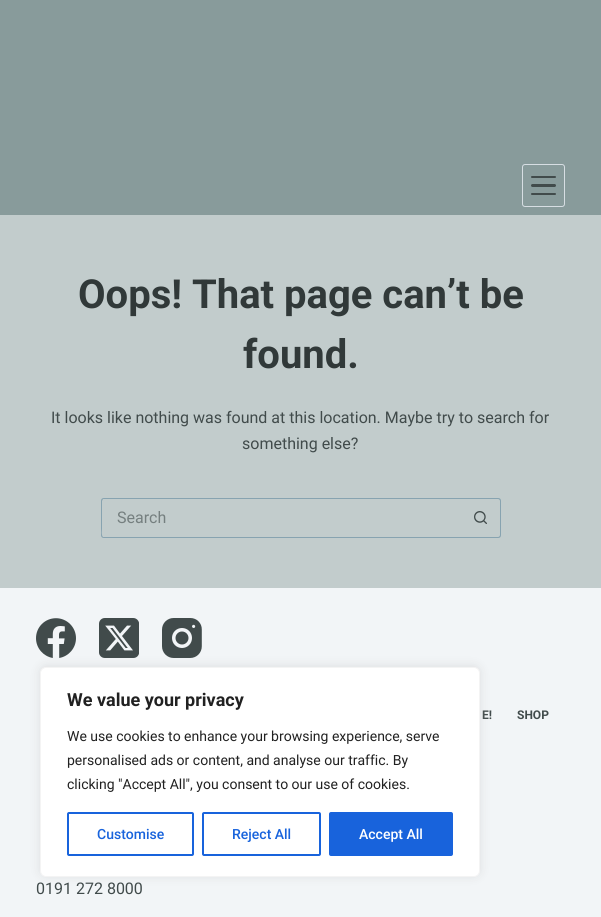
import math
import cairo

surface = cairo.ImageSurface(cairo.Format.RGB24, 601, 917)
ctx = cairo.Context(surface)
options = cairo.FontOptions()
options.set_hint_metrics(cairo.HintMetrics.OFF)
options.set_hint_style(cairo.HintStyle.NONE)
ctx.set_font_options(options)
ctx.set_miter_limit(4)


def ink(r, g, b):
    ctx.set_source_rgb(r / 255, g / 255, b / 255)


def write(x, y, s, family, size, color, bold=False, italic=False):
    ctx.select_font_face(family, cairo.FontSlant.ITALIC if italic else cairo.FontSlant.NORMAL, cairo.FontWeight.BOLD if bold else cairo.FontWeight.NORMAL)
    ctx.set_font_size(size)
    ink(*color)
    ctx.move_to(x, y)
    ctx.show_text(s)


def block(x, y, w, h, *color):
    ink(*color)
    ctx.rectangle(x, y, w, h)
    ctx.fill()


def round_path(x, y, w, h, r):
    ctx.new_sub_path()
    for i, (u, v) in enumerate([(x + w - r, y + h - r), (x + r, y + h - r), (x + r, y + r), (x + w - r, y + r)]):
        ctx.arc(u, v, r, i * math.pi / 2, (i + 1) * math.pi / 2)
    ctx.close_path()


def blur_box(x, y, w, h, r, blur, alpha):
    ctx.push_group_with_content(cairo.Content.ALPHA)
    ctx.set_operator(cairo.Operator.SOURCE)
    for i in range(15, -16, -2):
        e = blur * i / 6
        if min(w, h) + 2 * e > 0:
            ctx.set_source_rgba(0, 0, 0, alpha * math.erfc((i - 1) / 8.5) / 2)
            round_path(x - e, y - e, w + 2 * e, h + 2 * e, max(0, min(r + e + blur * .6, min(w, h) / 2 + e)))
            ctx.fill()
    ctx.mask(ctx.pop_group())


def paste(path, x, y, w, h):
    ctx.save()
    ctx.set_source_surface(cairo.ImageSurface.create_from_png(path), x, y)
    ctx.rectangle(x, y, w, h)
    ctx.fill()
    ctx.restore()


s1 = dict(family="Roboto", size=40, color=(49, 57, 57), bold=True)
s2 = dict(family="Roboto", size=16, color=(65, 75, 75))
s3 = dict(family="Roboto", size=16, color=(117, 127, 127))
s4 = dict(family="Roboto", size=12, color=(65, 75, 75), bold=True)
s5 = dict(family="Roboto", size=18, color=(33, 33, 33), bold=True)
s6 = dict(family="Roboto", size=14, color=(33, 33, 33))
s7 = dict(family="Roboto Medium", size=14, color=(24, 99, 220))
s8 = dict(family="Roboto Medium", size=14, color=(255, 255, 255))

ink(194, 204, 204)
ctx.paint()
block(0, 0, 601, 215, 136, 155, 155)
round_path(522.5, 164.5, 42, 42, 2.5)
ink(215, 222, 227)
ctx.set_line_width(1)
ctx.stroke()
ink(65, 75, 75)
round_path(531, 176, 25, 2, 1)
ctx.fill()
round_path(531, 184, 25, 3, 1.5)
ctx.fill()
round_path(531, 193, 25, 2, 1)
ctx.fill()
write(78, 308, "Oops! That page can’t be", **s1)
write(243, 368, "found.", **s1)
write(51, 423, "It looks like nothing was found at this location. Maybe try to search for", **s2)
write(242, 449, "something else?", **s2)
ink(135, 163, 176)
ctx.set_fill_rule(cairo.FillRule.EVEN_ODD)
ctx.new_path()
ctx.move_to(104, 498)
ctx.line_to(461, 498)
ctx.line_to(461, 538)
ctx.line_to(104, 538)
ctx.curve_to(102, 538, 101, 537, 101, 535)
ctx.line_to(101, 501)
ctx.curve_to(101, 499, 102, 498, 104, 498)
ctx.close_path()
ctx.move_to(104, 499)
ctx.line_to(461, 499)
ctx.line_to(461, 537)
ctx.line_to(103, 537)
ctx.curve_to(101, 535, 102, 530, 102, 529)
ctx.line_to(102, 501)
ctx.line_to(103, 499)
ctx.close_path()
ctx.fill()
write(117, 523, "Search", **s3)
ink(135, 163, 176)
ctx.new_path()
ctx.move_to(461, 498)
ctx.line_to(498, 498)
ctx.curve_to(500, 498, 501, 499, 501, 501)
ctx.line_to(501, 535)
ctx.curve_to(501, 537, 500, 538, 498, 538)
ctx.line_to(461, 538)
ctx.close_path()
ctx.move_to(461, 499)
ctx.line_to(498, 499)
ctx.curve_to(499, 499, 500, 500, 500, 501)
ctx.line_to(500, 535)
ctx.curve_to(500, 536, 499, 537, 498, 537)
ctx.line_to(461, 537)
ctx.close_path()
ctx.fill()
paste("pic1.png", 474, 511, 13, 13)
block(0, 588, 601, 329, 242, 245, 247)
paste("pic2.png", 36, 618, 40, 40)
paste("pic3.png", 99, 618, 40, 40)
paste("pic4.png", 162, 618, 40, 40)
write(482, 719, "E!", **s4)
write(517, 719, "SHOP", **s4)
write(36, 894, "0191 272 8000", **s2)
ink(172, 171, 171)
blur_box(40, 666, 440, 210, 6, 5, 0.3)
ink(255, 255, 255)
round_path(40.5, 667.5, 439, 209, 5.5)
ctx.fill_preserve()
ink(244, 244, 244)
ctx.stroke()
write(67, 706, "We value your privacy", **s5)
write(67, 741, "We use cookies to enhance your browsing experience, serve", **s6)
write(67, 765, "personalised ads or content, and analyse our traffic. By", **s6)
write(67, 789, "clicking \"Accept All\", you consent to our use of cookies.", **s6)
round_path(68, 813, 125, 42, 1)
ink(24, 99, 220)
ctx.set_line_width(2)
ctx.stroke()
write(97, 839, "Customise", **s7)
round_path(203, 813, 117, 42, 1)
ctx.stroke()
write(232, 839, "Reject All", **s7)
round_path(330, 813, 122, 42, 1)
ctx.fill_preserve()
ctx.stroke()
write(359, 839, "Accept All", **s8)
surface.write_to_png("screenshot.png")
